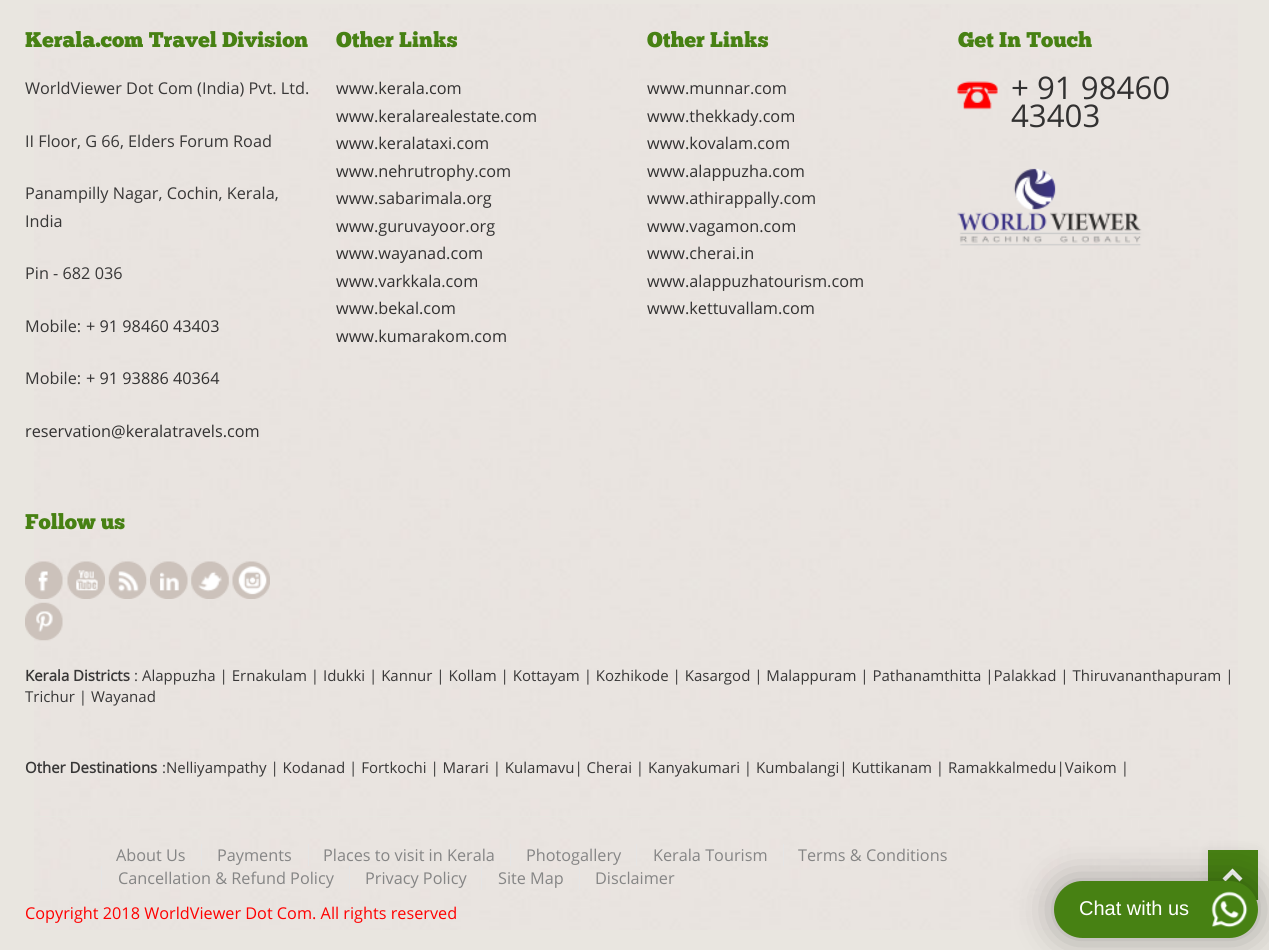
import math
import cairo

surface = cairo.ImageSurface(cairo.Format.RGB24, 1269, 950)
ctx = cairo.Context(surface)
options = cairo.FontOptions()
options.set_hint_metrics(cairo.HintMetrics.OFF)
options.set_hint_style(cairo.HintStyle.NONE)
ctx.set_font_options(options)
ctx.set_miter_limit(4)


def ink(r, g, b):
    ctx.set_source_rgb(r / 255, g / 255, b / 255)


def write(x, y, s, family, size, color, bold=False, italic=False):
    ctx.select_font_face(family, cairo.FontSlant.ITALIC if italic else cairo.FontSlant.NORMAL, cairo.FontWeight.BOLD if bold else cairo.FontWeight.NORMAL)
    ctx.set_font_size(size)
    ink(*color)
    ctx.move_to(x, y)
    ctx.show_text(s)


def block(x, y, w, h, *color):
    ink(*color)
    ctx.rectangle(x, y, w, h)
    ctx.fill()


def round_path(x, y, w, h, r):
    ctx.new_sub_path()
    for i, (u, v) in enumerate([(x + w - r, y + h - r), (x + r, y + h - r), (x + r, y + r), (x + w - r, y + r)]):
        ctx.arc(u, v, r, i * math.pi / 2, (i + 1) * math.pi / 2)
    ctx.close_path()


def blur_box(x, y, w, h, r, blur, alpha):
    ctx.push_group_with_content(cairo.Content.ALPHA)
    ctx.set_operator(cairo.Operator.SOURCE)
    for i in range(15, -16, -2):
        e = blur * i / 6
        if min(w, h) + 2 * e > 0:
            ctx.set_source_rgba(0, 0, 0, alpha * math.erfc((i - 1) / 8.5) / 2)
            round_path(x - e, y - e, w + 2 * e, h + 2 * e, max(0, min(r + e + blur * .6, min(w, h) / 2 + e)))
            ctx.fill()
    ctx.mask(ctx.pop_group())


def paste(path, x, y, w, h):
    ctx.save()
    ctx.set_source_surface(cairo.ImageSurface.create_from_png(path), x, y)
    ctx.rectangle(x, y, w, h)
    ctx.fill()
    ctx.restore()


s1 = dict(family="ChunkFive", size=21.25, color=(71, 129, 19))
s2 = dict(family="Open Sans", size=16.25, color=(56, 55, 55))
s3 = dict(family="Open Sans", size=16.25, color=(50, 49, 49))
s4 = dict(family="Open Sans", size=31.25, color=(50, 49, 49))
s5 = dict(family="Open Sans", size=15, color=(56, 55, 55), bold=True)
s6 = dict(family="Open Sans", size=15, color=(56, 55, 55))
s7 = dict(family="Open Sans", size=16.25, color=(133, 133, 133))
s8 = dict(family="Open Sans", size=16.25, color=(255, 0, 0))
s9 = dict(family="Liberation Sans", size=20, color=(255, 255, 255))

ink(233, 230, 224)
ctx.paint()
paste("pic1.png", 34, 4, 1204, 926)
write(25, 47, "Kerala.com Travel Division", **s1)
write(25, 94, "WorldViewer Dot Com (India) Pvt. Ltd.", **s2)
write(25, 147, "II Floor, G 66, Elders Forum Road", **s2)
write(25, 199, "Panampilly Nagar, Cochin, Kerala,", **s2)
write(25, 227, "India", **s2)
write(25, 279, "Pin - 682 036", **s2)
write(25, 332, "Mobile:", **s2)
write(86, 332, "+ 91 98460 43403", **s3)
write(25, 384, "Mobile:", **s2)
write(86, 384, "+ 91 93886 40364", **s3)
write(25, 437, "reservation@keralatravels.com", **s3)
write(25, 529, "Follow us", **s1)
paste("pic2.png", 25, 561, 38, 38)
paste("pic3.png", 38, 571, 10, 21)
paste("pic4.png", 67, 561, 38, 38)
paste("pic5.png", 76, 570, 22, 21)
paste("pic6.png", 108, 561, 39, 38)
paste("pic7.png", 118, 571, 21, 21)
paste("pic8.png", 150, 561, 38, 38)
paste("pic9.png", 160, 572, 19, 19)
paste("pic10.png", 191, 561, 38, 38)
paste("pic11.png", 198, 571, 24, 21)
paste("pic12.png", 232, 561, 38, 38)
paste("pic13.png", 238, 566, 29, 29)
paste("pic14.png", 25, 602, 38, 39)
paste("pic15.png", 36, 611, 17, 21)
write(336, 47, "Other Links", **s1)
write(336, 94, "www.kerala.com", **s3)
write(336, 122, "www.keralarealestate.com", **s3)
write(336, 149, "www.keralataxi.com", **s3)
write(336, 177, "www.nehrutrophy.com", **s3)
write(336, 204, "www.sabarimala.org", **s3)
write(336, 232, "www.guruvayoor.org", **s3)
write(336, 259, "www.wayanad.com", **s3)
write(336, 287, "www.varkkala.com", **s3)
write(336, 314, "www.bekal.com", **s3)
write(336, 342, "www.kumarakom.com", **s3)
write(647, 47, "Other Links", **s1)
write(647, 94, "www.munnar.com", **s3)
write(647, 122, "www.thekkady.com", **s3)
write(647, 149, "www.kovalam.com", **s3)
write(647, 177, "www.alappuzha.com", **s3)
write(647, 204, "www.athirappally.com", **s3)
write(647, 232, "www.vagamon.com", **s3)
write(647, 259, "www.cherai.in", **s3)
write(647, 287, "www.alappuzhatourism.com", **s3)
write(647, 314, "www.kettuvallam.com", **s3)
write(958, 47, "Get In Touch", **s1)
paste("pic16.png", 957, 81, 41, 29)
write(1011, 99, "+ 91 98460", **s4)
write(1011, 127, "43403", **s4)
paste("pic17.png", 957, 168, 185, 78)
write(25, 681, "Kerala Districts", **s5)
write(134, 681, ": Alappuzha | Ernakulam | Idukki | Kannur | Kollam | Kottayam | Kozhikode | Kasargod | Malappuram | Pathanamthitta |Palakkad | Thiruvananthapuram |", **s6)
write(25, 702, "Trichur | Wayanad", **s6)
write(25, 773, "Other Destinations", **s5)
write(162, 773, ":Nelliyampathy | Kodanad | Fortkochi | Marari | Kulamavu| Cherai | Kanyakumari | Kumbalangi| Kuttikanam | Ramakkalmedu|Vaikom |", **s6)
block(36, 816, 1209, 1, 231, 230, 224)
write(116, 861, "About Us", **s7)
block(201, 844, 1, 22, 229, 229, 229)
write(217, 861, "Payments", **s7)
block(308, 844, 1, 22, 229, 229, 229)
write(323, 861, "Places to visit in Kerala", **s7)
block(510, 844, 1, 22, 229, 229, 229)
write(526, 861, "Photogallery", **s7)
block(636, 844, 1, 22, 229, 229, 229)
write(653, 861, "Kerala Tourism", **s7)
block(783, 844, 1, 22, 229, 229, 229)
write(798, 861, "Terms & Conditions", **s7)
block(101, 866, 1, 24, 229, 229, 229)
write(118, 884, "Cancellation & Refund Policy", **s7)
block(349, 866, 1, 24, 229, 229, 229)
write(365, 884, "Privacy Policy", **s7)
block(481, 866, 1, 24, 229, 229, 229)
write(498, 884, "Site Map", **s7)
block(579, 866, 1, 24, 229, 229, 229)
write(595, 884, "Disclaimer", **s7)
write(25, 919, "Copyright 2018 WorldViewer Dot Com. All rights reserved", **s8)
ink(0, 0, 0)
blur_box(1208, 850, 50, 50, 0, 6, 0.05)
block(1208, 850, 50, 50, 71, 129, 19)
ink(255, 255, 255)
ctx.new_path()
ctx.move_to(1232.5, 868.5)
ctx.line_to(1242.5, 878.5)
ctx.line_to(1239.5, 881.5)
ctx.line_to(1232.5, 874.5)
ctx.line_to(1225.5, 881.5)
ctx.line_to(1222.5, 878.5)
ctx.close_path()
ctx.fill()
ink(0, 0, 0)
blur_box(1054, 881, 204, 57, 28.5, 19, 0.3)
ink(71, 129, 19)
round_path(1054, 881, 204, 57, 28.5)
ctx.fill()
write(1079, 915, "Chat with us", **s9)
paste("pic18.png", 1211, 891, 37, 37)
surface.write_to_png("screenshot.png")
